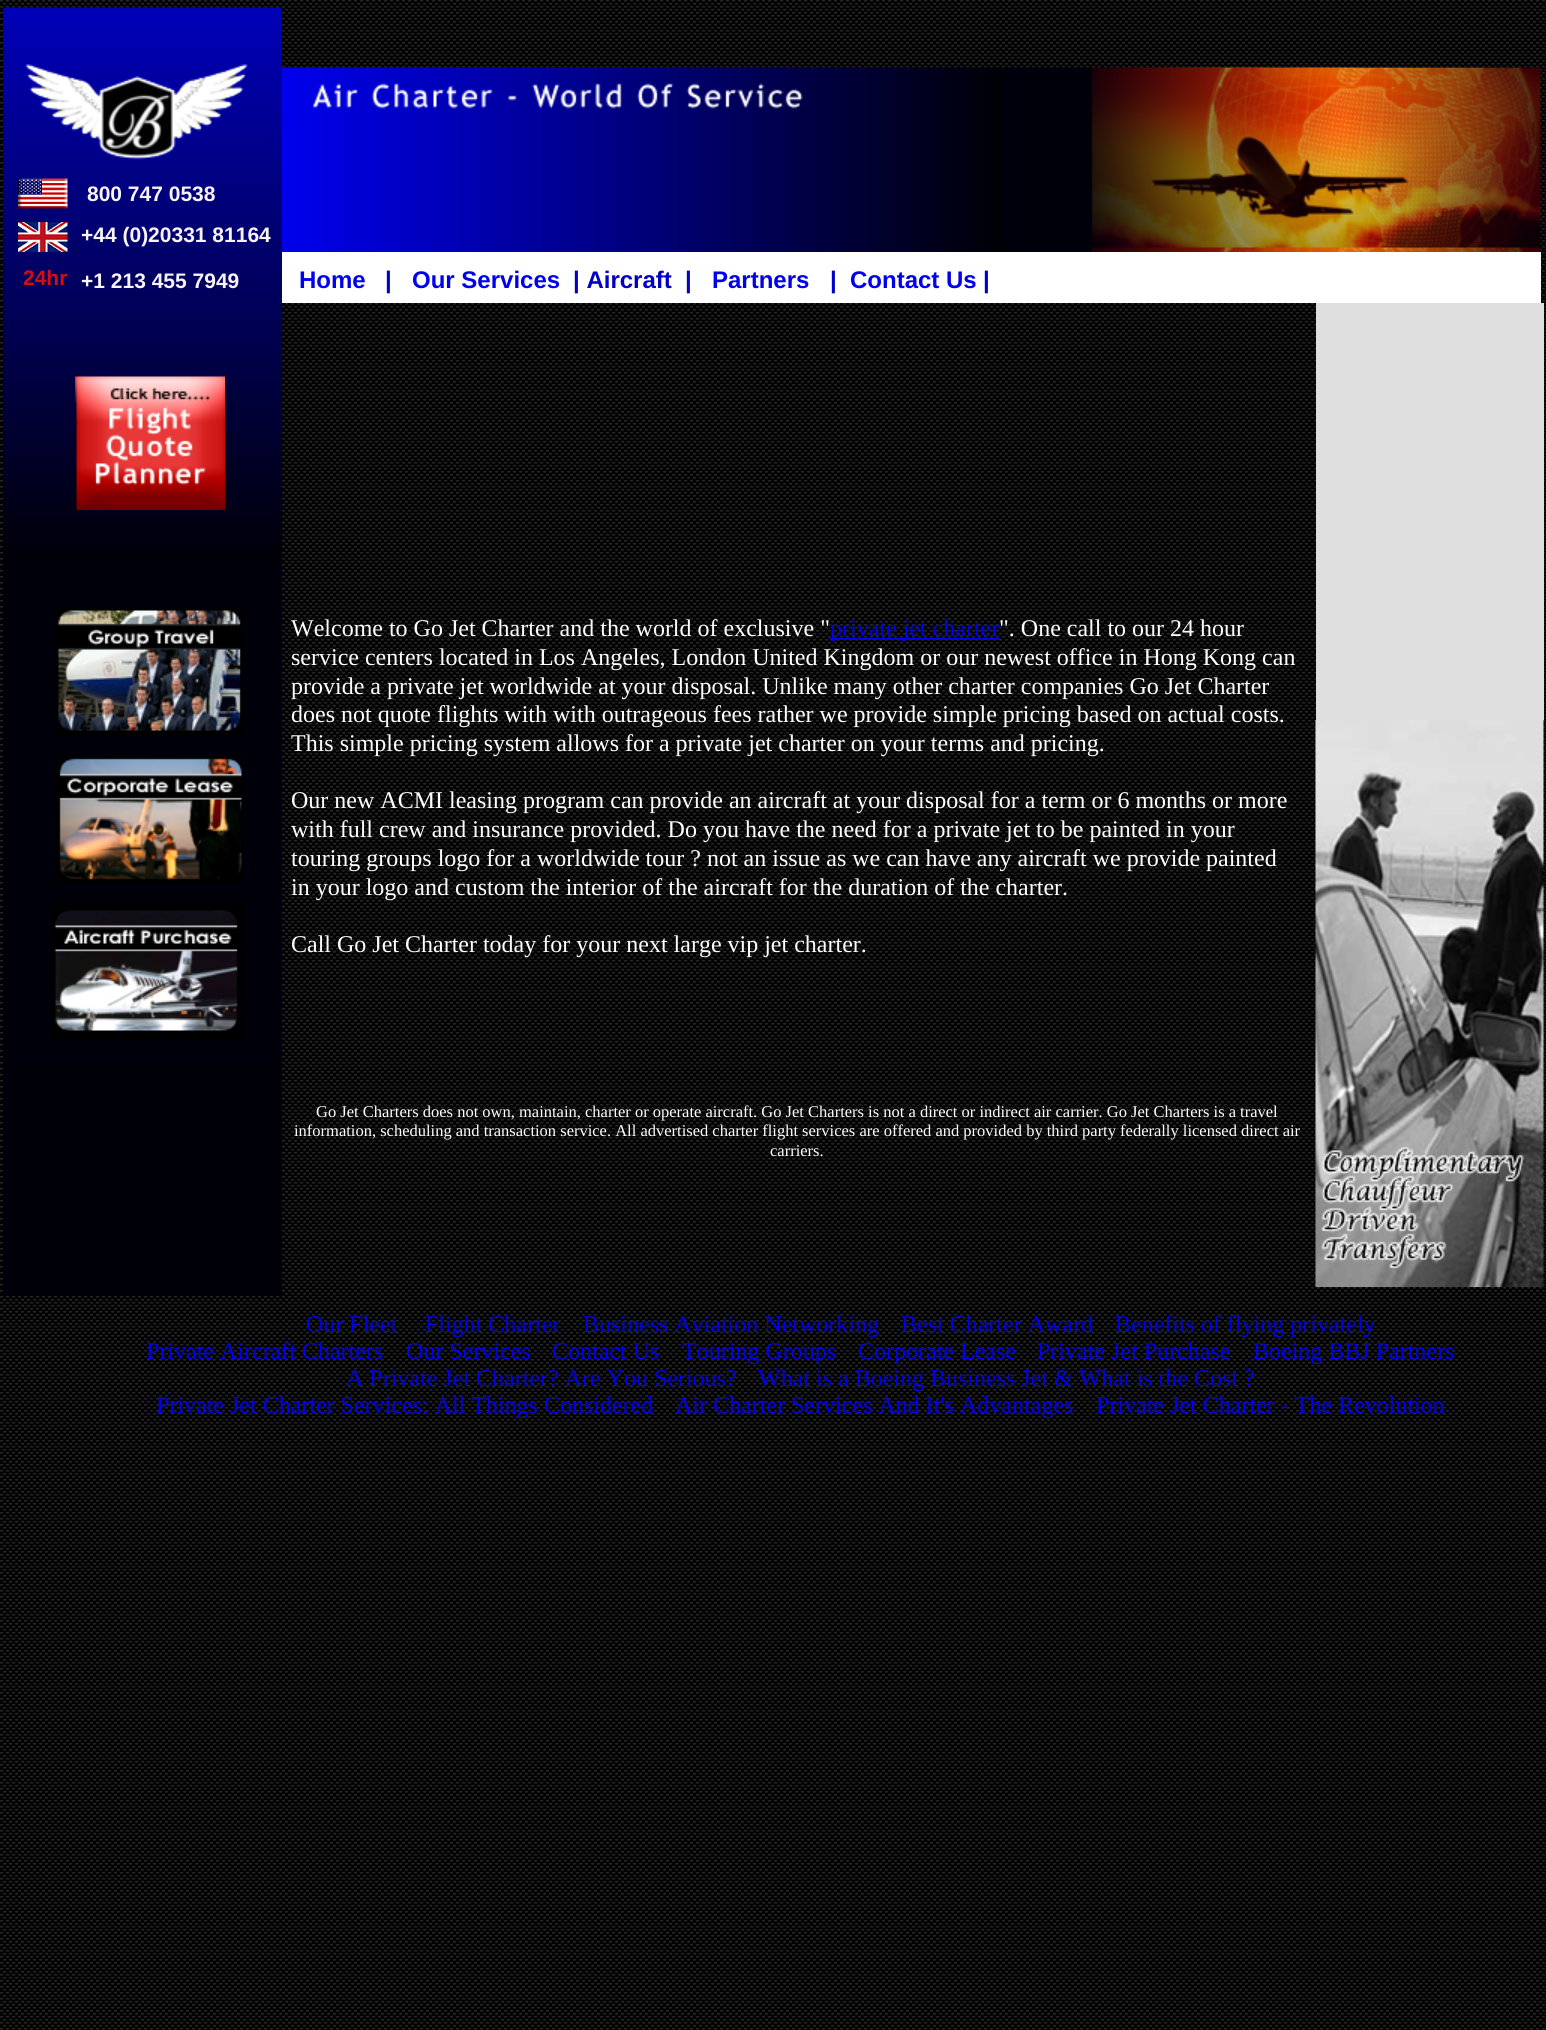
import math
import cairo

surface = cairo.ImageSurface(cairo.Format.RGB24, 1546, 2030)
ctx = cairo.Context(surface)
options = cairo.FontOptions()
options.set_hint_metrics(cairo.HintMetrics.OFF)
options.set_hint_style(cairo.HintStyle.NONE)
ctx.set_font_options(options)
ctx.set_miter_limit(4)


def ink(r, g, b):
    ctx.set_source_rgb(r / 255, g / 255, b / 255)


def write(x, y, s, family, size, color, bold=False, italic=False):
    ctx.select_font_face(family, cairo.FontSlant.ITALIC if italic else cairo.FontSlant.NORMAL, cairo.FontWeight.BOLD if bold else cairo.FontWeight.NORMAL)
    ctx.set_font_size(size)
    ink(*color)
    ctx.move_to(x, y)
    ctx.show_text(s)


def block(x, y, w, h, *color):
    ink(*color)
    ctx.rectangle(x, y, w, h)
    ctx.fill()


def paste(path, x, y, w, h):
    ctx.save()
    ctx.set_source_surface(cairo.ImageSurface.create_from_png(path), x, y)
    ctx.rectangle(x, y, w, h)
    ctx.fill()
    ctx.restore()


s1 = dict(family="Liberation Sans", size=21, color=(247, 243, 247), bold=True)
s2 = dict(family="Liberation Sans", size=21, color=(214, 12, 16), bold=True)
s3 = dict(family="Liberation Sans", size=24, color=(0, 0, 238), bold=True)
s4 = dict(family="Liberation Sans", size=24, color=(0, 0, 198), bold=True)
s5 = dict(family="Liberation Serif", size=24, color=(255, 255, 255))
s6 = dict(family="Liberation Serif", size=24, color=(0, 0, 238))
s7 = dict(family="Liberation Serif", size=16.5, color=(255, 255, 255))

ink(255, 255, 255)
ctx.paint()
paste("pic1.png", 0, 0, 1546, 2030)
paste("pic2.png", 3, 7, 279, 1052)
paste("pic3.png", 18, 178, 50, 31)
write(87, 201, "800 747 0538", **s1)
paste("pic4.png", 18, 222, 50, 30)
write(81, 242, "+44 (0)20331 81164", **s1)
write(23, 285, "24hr", **s2)
write(81, 288, "+1 213 455 7949", **s1)
paste("pic5.png", 75, 376, 150, 134)
paste("pic6.png", 55, 607, 188, 130)
paste("pic7.png", 55, 756, 188, 128)
paste("pic8.png", 51, 903, 192, 137)
block(3, 1059, 279, 237, 0, 0, 8)
paste("pic9.png", 282, 67, 1259, 185)
block(282, 252, 1259, 51, 255, 255, 255)
write(299, 288, "Home", **s3)
write(385, 288, "|", **s4)
write(412, 288, "Our Services", **s3)
write(573, 288, "| Aircraft", **s4)
write(685, 288, "|", **s4)
write(712, 288, "Partners", **s3)
write(830, 288, "|", **s4)
write(850, 288, "Contact Us", **s3)
write(983, 288, "|", **s4)
write(291, 636, "Welcome to Go Jet Charter and the world of exclusive \"", **s5)
block(830, 638, 169, 2, 0, 0, 238)
write(830, 636, "private jet charter", **s6)
write(999, 636, "\". One call to our 24 hour", **s5)
write(291, 665, "service centers located in Los Angeles, London United Kingdom or our newest office in Hong Kong can", **s5)
write(291, 694, "provide a private jet worldwide at your disposal. Unlike many other charter companies Go Jet Charter", **s5)
write(291, 722, "does not quote flights with with outrageous fees rather we provide simple pricing based on actual costs.", **s5)
write(291, 751, "This simple pricing system allows for a private jet charter on your terms and pricing.", **s5)
write(291, 808, "Our new ACMI leasing program can provide an aircraft at your disposal for a term or 6 months or more", **s5)
write(291, 837, "with full crew and insurance provided. Do you have the need for a private jet to be painted in your", **s5)
write(291, 866, "touring groups logo for a worldwide tour ? not an issue as we can have any aircraft we provide painted", **s5)
write(291, 895, "in your logo and custom the interior of the aircraft for the duration of the charter.", **s5)
write(291, 952, "Call Go Jet Charter today for your next large vip jet charter.", **s5)
write(316, 1117, "Go Jet Charters does not own, maintain, charter or operate aircraft. Go Jet Charters is not a direct or indirect air carrier. Go Jet Charters is a travel", **s7)
write(294, 1136, "information, scheduling and transaction service. All advertised charter flight services are offered and provided by third party federally licensed direct air", **s7)
write(770, 1156, "carriers.", **s7)
block(1316, 303, 228, 417, 222, 223, 222)
paste("pic10.png", 1315, 720, 229, 567)
write(306, 1332, "Our Fleet", **s6)
write(425, 1332, "Flight Charter", **s6)
write(583, 1332, "Business Aviation Networking", **s6)
write(901, 1332, "Best Charter Award", **s6)
write(1115, 1332, "Benefits of flying privately", **s6)
write(146, 1359, "Private Aircraft Charters", **s6)
write(406, 1359, "Our Services", **s6)
write(552, 1359, "Contact Us", **s6)
write(682, 1359, "Touring Groups", **s6)
write(858, 1359, "Corporate Lease", **s6)
write(1037, 1359, "Private Jet Purchase", **s6)
write(1253, 1359, "Boeing BBJ Partners", **s6)
write(346, 1386, "A Private Jet Charter? Are You Serious?", **s6)
write(758, 1386, "What is a Boeing Business Jet & What is the Cost ?", **s6)
write(156, 1413, "Private Jet Charter Services: All Things Considered", **s6)
write(675, 1413, "Air Charter Services And It's Advantages", **s6)
write(1096, 1413, "Private Jet Charter - The Revolution", **s6)
surface.write_to_png("screenshot.png")
